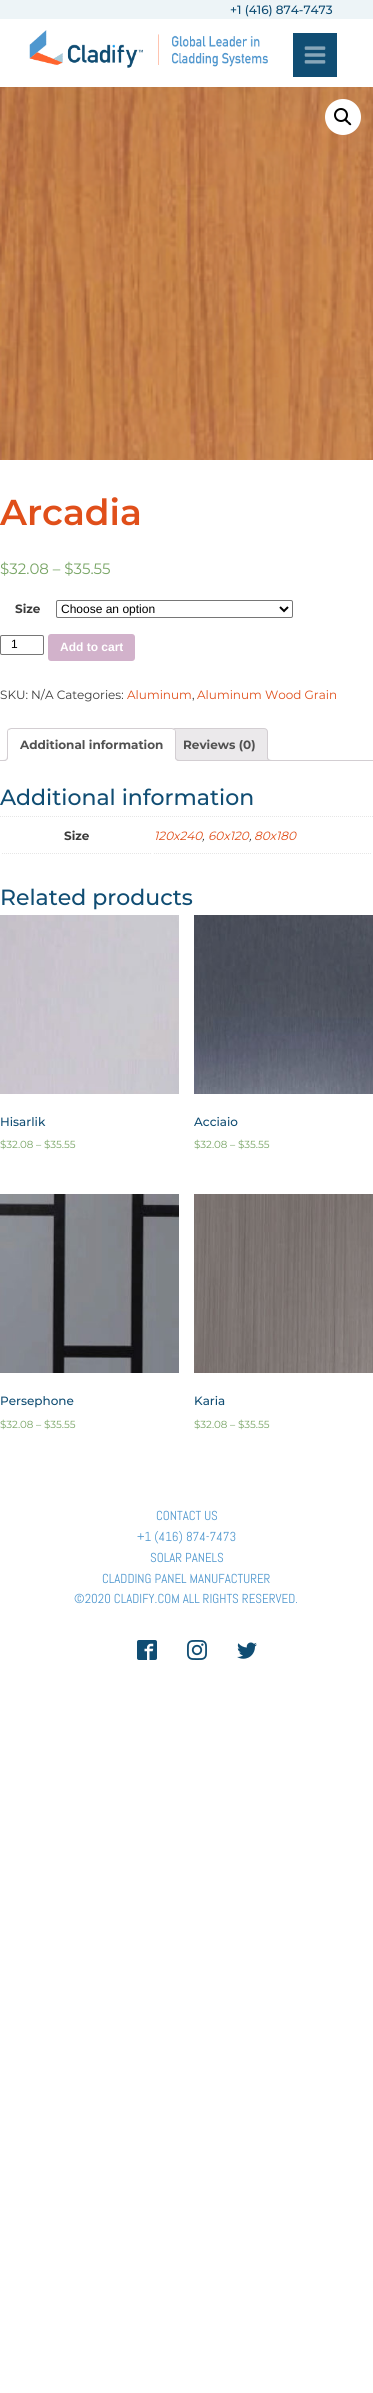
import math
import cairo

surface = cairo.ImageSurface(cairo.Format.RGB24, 373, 2393)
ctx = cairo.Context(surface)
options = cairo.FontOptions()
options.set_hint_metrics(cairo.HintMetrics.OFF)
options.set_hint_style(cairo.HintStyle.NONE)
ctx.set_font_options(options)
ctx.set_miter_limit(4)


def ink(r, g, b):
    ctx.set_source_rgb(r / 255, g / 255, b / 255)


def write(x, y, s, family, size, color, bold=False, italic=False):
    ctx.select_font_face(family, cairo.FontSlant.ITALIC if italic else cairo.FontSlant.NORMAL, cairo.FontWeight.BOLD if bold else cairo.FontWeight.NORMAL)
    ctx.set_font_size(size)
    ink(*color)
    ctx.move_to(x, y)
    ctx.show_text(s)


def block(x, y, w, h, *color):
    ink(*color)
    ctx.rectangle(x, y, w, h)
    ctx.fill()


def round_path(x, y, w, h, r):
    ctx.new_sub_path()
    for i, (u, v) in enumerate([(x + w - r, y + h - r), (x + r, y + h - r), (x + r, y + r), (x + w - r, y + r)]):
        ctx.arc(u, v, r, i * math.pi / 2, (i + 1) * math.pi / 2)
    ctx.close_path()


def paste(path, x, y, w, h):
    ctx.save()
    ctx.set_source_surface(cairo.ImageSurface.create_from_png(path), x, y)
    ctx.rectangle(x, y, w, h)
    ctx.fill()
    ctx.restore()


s1 = dict(family="Montserrat Medium", size=12, color=(16, 77, 115))
s2 = dict(family="Montserrat SemiBold", size=36, color=(224, 79, 26))
s3 = dict(family="Montserrat", size=15, color=(119, 164, 100))
s4 = dict(family="Montserrat", size=12, color=(58, 58, 58), bold=True)
s5 = dict(family="Liberation Sans", size=12, color=(0, 0, 0))
s6 = dict(family="Liberation Sans", size=12, color=(255, 255, 255), bold=True)
s7 = dict(family="Montserrat", size=12, color=(58, 58, 58))
s8 = dict(family="Montserrat", size=12, color=(224, 79, 26))
s9 = dict(family="Montserrat", size=12, color=(81, 81, 81), bold=True)
s10 = dict(family="Montserrat Medium", size=22, color=(16, 77, 115))
s11 = dict(family="Montserrat", size=12, color=(224, 79, 26), italic=True)
s12 = dict(family="Montserrat", size=12, color=(58, 58, 58), italic=True)
s13 = dict(family="Montserrat", size=10.25, color=(119, 164, 100))
s14 = dict(family="Abel", size=13, color=(79, 151, 206))

ink(255, 255, 255)
ctx.paint()
block(0, 0, 373, 19, 237, 244, 247)
write(230, 14, "+1 (416) 874-7473", **s1)
paste("pic1.png", 20, 23, 253, 50)
block(293, 33, 44, 44, 16, 77, 115)
paste("pic2.png", 304, 46, 22, 18)
paste("pic3.png", 0, 87, 373, 373)
ink(255, 255, 255)
ctx.arc(343, 117, 18, 0, 2 * math.pi)
ctx.fill()
ctx.arc(341, 115, 6, 0, 2 * math.pi)
ink(0, 0, 0)
ctx.stroke()
ctx.new_path()
ctx.move_to(345, 119.5)
ctx.curve_to(346.5, 118, 348, 121, 348.5, 121.5)
ctx.curve_to(349.5, 122, 352, 124, 351, 125)
ctx.curve_to(349.5, 126, 348, 123.5, 347.5, 123)
ctx.curve_to(346.5, 122.5, 344, 120.5, 345, 119.5)
ctx.close_path()
ctx.fill()
write(0, 525, "Arcadia", **s2)
write(0, 574, "$32.08 – $35.55", **s3)
write(15, 613, "Size", **s4)
round_path(56.5, 600.5, 236, 17, 1.5)
ink(118, 118, 118)
ctx.set_line_width(1)
ctx.stroke()
ctx.new_path()
ctx.move_to(280, 607)
ctx.line_to(284, 611)
ctx.line_to(288, 607)
ink(0, 0, 0)
ctx.set_line_width(2)
ctx.stroke()
write(61, 613, "Choose an option", **s5)
round_path(0.5, 635.5, 43, 19, 1.5)
ink(118, 118, 118)
ctx.set_line_width(1)
ctx.stroke()
write(11, 648, "1", **s5)
ink(210, 178, 203)
round_path(48, 634, 87, 27, 3)
ctx.fill()
write(60, 651, "Add to cart", **s6)
write(0, 699, "SKU: N/A Categories:", **s7)
write(127, 699, "Aluminum", **s8)
write(192, 699, ",", **s7)
write(197, 699, "Aluminum Wood Grain", **s8)
ink(235, 233, 235)
ctx.new_path()
ctx.move_to(174, 728.5)
ctx.line_to(264, 728.5)
ctx.curve_to(266, 728.5, 267.5, 730, 267.5, 732)
ctx.line_to(267.5, 760.5)
ctx.line_to(170.5, 760.5)
ctx.line_to(170.5, 732)
ctx.curve_to(170.5, 730, 172, 728.5, 174, 728.5)
ctx.close_path()
ctx.fill_preserve()
ink(211, 206, 210)
ctx.stroke()
ctx.save()
ctx.rectangle(0, 728, 373, 33)
ctx.clip()
ink(235, 233, 235)
ctx.new_path()
ctx.move_to(265, 758)
ctx.curve_to(265, 761.5, 266.5, 763, 270, 763)
ctx.line_to(270, 761)
ctx.curve_to(268.5, 760.5, 267.5, 759.5, 267, 758)
ctx.close_path()
ctx.fill()
ctx.restore()
ctx.set_fill_rule(cairo.FillRule.EVEN_ODD)
ctx.new_path()
ctx.move_to(267, 756)
ctx.line_to(272, 756)
ctx.line_to(272, 761)
ctx.curve_to(269.5, 761, 267, 760, 267, 757)
ctx.close_path()
ctx.move_to(268, 756)
ctx.line_to(272, 756)
ctx.line_to(272, 760)
ctx.curve_to(270, 760, 268, 759.5, 268, 757)
ctx.close_path()
ctx.fill()
block(0, 760, 373, 1, 211, 206, 210)
ink(255, 255, 255)
ctx.new_path()
ctx.move_to(11, 728)
ctx.line_to(172, 728)
ctx.curve_to(174, 728, 176, 730, 176, 732)
ctx.line_to(176, 761)
ctx.line_to(7, 761)
ctx.line_to(7, 732)
ctx.curve_to(7, 730, 9, 728, 11, 728)
ctx.close_path()
ctx.fill()
ink(211, 206, 210)
ctx.set_fill_rule(cairo.FillRule.WINDING)
ctx.new_path()
ctx.move_to(11, 728)
ctx.line_to(8, 729)
ctx.line_to(9, 730)
ctx.line_to(11, 729)
ctx.line_to(172, 729)
ctx.line_to(174, 730)
ctx.line_to(175, 729)
ctx.line_to(172, 728)
ctx.close_path()
ctx.fill()
ctx.new_path()
ctx.move_to(176, 761)
ctx.line_to(176, 732)
ctx.curve_to(176, 731, 175.5, 730, 175, 729)
ctx.line_to(174, 730)
ctx.curve_to(175, 730, 175, 731, 175, 732)
ctx.line_to(175, 760)
ctx.close_path()
ctx.fill()
ink(255, 255, 255)
ctx.new_path()
ctx.move_to(176, 761)
ctx.line_to(175, 760)
ctx.line_to(8, 760)
ctx.line_to(7, 761)
ctx.close_path()
ctx.fill()
ink(211, 206, 210)
ctx.new_path()
ctx.move_to(7, 761)
ctx.line_to(8, 760)
ctx.line_to(8, 732)
ctx.curve_to(8, 731, 8, 730, 9, 730)
ctx.line_to(8, 729)
ctx.curve_to(7.5, 730, 7, 731, 7, 732)
ctx.close_path()
ctx.fill()
write(20, 749, "Additional information", **s9)
ctx.save()
ctx.rectangle(0, 728, 373, 33)
ctx.clip()
ink(255, 255, 255)
ctx.new_path()
ctx.move_to(5, 761)
ctx.line_to(5, 763)
ctx.curve_to(8.5, 763, 10, 761.5, 10, 758)
ctx.line_to(8, 758)
ctx.curve_to(7.5, 759.5, 6.5, 760.5, 5, 761)
ctx.close_path()
ctx.fill()
ctx.restore()
ink(211, 206, 210)
ctx.set_fill_rule(cairo.FillRule.EVEN_ODD)
ctx.new_path()
ctx.move_to(3, 756)
ctx.line_to(8, 756)
ctx.curve_to(8, 759.5, 6.5, 761, 3, 761)
ctx.close_path()
ctx.move_to(3, 756)
ctx.line_to(7, 756)
ctx.curve_to(7, 759, 6, 760, 3, 760)
ctx.close_path()
ctx.fill()
ctx.save()
ctx.set_fill_rule(cairo.FillRule.WINDING)
ctx.rectangle(0, 728, 373, 33)
ctx.clip()
ink(255, 255, 255)
ctx.new_path()
ctx.move_to(173, 758)
ctx.curve_to(173, 761.5, 174.5, 763, 178, 763)
ctx.line_to(178, 761)
ctx.curve_to(176.5, 760.5, 175.5, 759.5, 175, 758)
ctx.close_path()
ctx.fill()
ctx.restore()
ctx.new_path()
ctx.move_to(175, 756)
ctx.line_to(180, 756)
ctx.line_to(180, 761)
ctx.curve_to(177.5, 761, 175, 760, 175, 757)
ctx.close_path()
ctx.move_to(176, 756)
ctx.line_to(180, 756)
ctx.line_to(180, 760)
ctx.curve_to(178, 760, 176, 759.5, 176, 757)
ctx.close_path()
ctx.fill()
write(183, 749, "Reviews (0)", **s9)
write(0, 805, "Additional information", **s10)
ctx.new_path()
ctx.move_to(0, 816.5)
ctx.line_to(373, 816.5)
ink(230, 230, 230)
ctx.set_dash([1, 1])
ctx.stroke()
ctx.new_path()
ctx.move_to(2, 853.5)
ctx.line_to(152, 853.5)
ctx.stroke()
write(64, 840, "Size", **s4)
ctx.new_path()
ctx.move_to(154, 853.5)
ctx.line_to(371, 853.5)
ink(230, 230, 230)
ctx.stroke()
write(154, 840, "120x240", **s11)
write(202, 840, ",", **s12)
write(208, 840, "60x120", **s11)
write(254, 840, "80x180", **s11)
write(249, 840, ",", **s12)
write(0, 905, "Related products", **s10)
paste("pic4.png", 0, 915, 179, 179)
write(0, 1126, "Hisarlik", **s1)
write(0, 1148, "$32.08 – $35.55", **s13)
paste("pic5.png", 194, 915, 179, 179)
write(194, 1126, "Acciaio", **s1)
write(194, 1148, "$32.08 – $35.55", **s13)
paste("pic6.png", 0, 1194, 179, 179)
write(0, 1405, "Persephone", **s1)
write(0, 1428, "$32.08 – $35.55", **s13)
paste("pic7.png", 194, 1194, 179, 179)
write(194, 1405, "Karia", **s1)
write(194, 1428, "$32.08 – $35.55", **s13)
write(156, 1520, "CONTACT US", **s14)
write(137, 1541, "+1 (416) 874-7473", **s14)
write(150, 1562, "SOLAR PANELS", **s14)
write(102, 1583, "CLADDING PANEL MANUFACTURER", **s14)
write(74, 1603, "©2020 CLADIFY.COM ALL RIGHTS RESERVED.", **s14)
paste("pic8.png", 137, 1640, 20, 20)
paste("pic9.png", 187, 1640, 20, 20)
paste("pic10.png", 237, 1642, 20, 17)
surface.write_to_png("screenshot.png")
